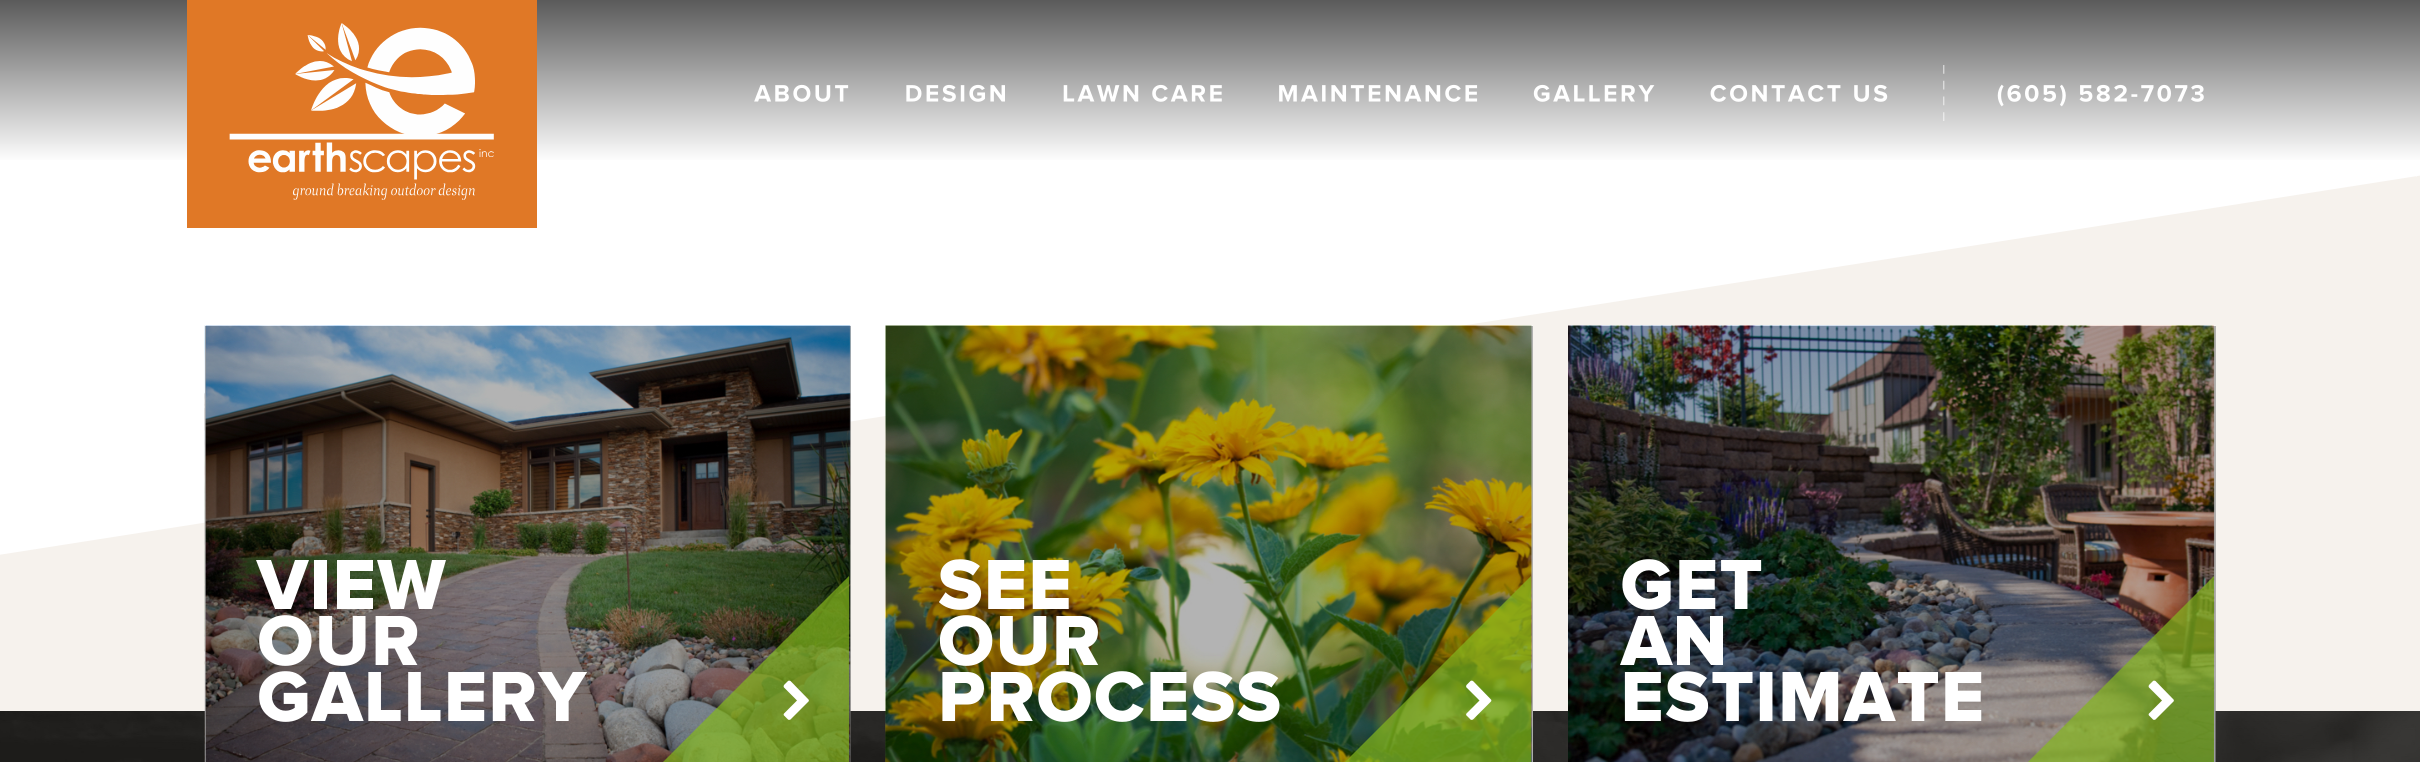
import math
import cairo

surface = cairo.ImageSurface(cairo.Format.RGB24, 2420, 762)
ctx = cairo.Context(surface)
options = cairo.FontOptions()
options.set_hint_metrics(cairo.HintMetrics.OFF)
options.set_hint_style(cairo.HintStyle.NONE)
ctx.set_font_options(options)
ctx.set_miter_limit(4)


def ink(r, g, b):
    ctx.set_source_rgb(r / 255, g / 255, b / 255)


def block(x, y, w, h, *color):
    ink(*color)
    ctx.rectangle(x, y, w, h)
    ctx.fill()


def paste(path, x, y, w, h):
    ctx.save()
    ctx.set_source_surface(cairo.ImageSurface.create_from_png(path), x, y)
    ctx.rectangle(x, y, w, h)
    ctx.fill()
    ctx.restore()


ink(255, 255, 255)
ctx.paint()
gradient = cairo.LinearGradient(1210, 175, 1210, 0)
gradient.add_color_stop_rgba(0.07, 1, 1, 1, 1)
gradient.add_color_stop_rgba(1, 0.353, 0.353, 0.353, 1)
ctx.set_source(gradient)
ctx.rectangle(0, 0, 2420, 160)
ctx.fill()
ink(246, 242, 237)
ctx.set_fill_rule(cairo.FillRule.EVEN_ODD)
ctx.new_path()
ctx.move_to(-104, 571)
ctx.line_to(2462, 169)
ctx.line_to(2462, 571)
ctx.close_path()
ctx.fill()
block(187, 0, 350, 228, 224, 120, 38)
paste("pic1.png", 229, 23, 265, 177)
paste("pic2.png", 754, 84, 95, 18)
paste("pic3.png", 906, 84, 99, 18)
paste("pic4.png", 1063, 84, 159, 18)
paste("pic5.png", 1279, 84, 199, 18)
paste("pic6.png", 1533, 84, 122, 18)
paste("pic7.png", 1710, 84, 178, 18)
ctx.save()
ctx.set_fill_rule(cairo.FillRule.WINDING)
ctx.rectangle(1943, 65, 2, 56)
ctx.clip()
ctx.new_path()
ctx.move_to(1943.5, 65)
ctx.line_to(1943.5, 126)
ctx.set_source_rgba(1, 1, 1, 0.55)
ctx.set_line_width(1.8)
ctx.set_dash([8.75, 7])
ctx.stroke()
ctx.restore()
paste("pic8.png", 1997, 84, 207, 23)
block(2416, 176, 1, 1, 250, 248, 245)
block(0, 571, 2420, 140, 246, 242, 237)
paste("pic19.png", 0, 711, 2420, 51)
paste("pic9.png", 204, 325, 647, 437)
ctx.set_source_rgba(0, 0, 0, 0.3)
ctx.rectangle(205, 326, 646, 436)
ctx.fill()
ink(255, 255, 255)
ctx.set_fill_rule(cairo.FillRule.WINDING)
ctx.new_path()
ctx.move_to(291, 609)
ctx.line_to(275, 609)
ctx.line_to(256, 560)
ctx.line_to(271, 560)
ctx.line_to(283, 595)
ctx.line_to(295, 560)
ctx.line_to(309, 560)
ctx.close_path()
ctx.move_to(327, 609)
ctx.line_to(314, 609)
ctx.line_to(314, 560)
ctx.line_to(327, 560)
ctx.close_path()
ctx.move_to(373, 609)
ctx.line_to(337, 609)
ctx.line_to(337, 560)
ctx.line_to(373, 560)
ctx.line_to(373, 571)
ctx.line_to(350, 571)
ctx.line_to(350, 579)
ctx.line_to(372, 579)
ctx.line_to(372, 590)
ctx.line_to(350, 590)
ctx.line_to(350, 598)
ctx.line_to(373, 598)
ctx.close_path()
ctx.move_to(432, 609)
ctx.line_to(419, 609)
ctx.line_to(411, 578)
ctx.line_to(404, 609)
ctx.line_to(391, 609)
ctx.line_to(377, 560)
ctx.line_to(391, 560)
ctx.line_to(398, 593)
ctx.line_to(407, 560)
ctx.line_to(416, 560)
ctx.line_to(425, 593)
ctx.line_to(432, 560)
ctx.line_to(446, 560)
ctx.close_path()
ctx.fill()
paste("pic10.png", 259, 615, 159, 51)
paste("pic11.png", 259, 671, 328, 51)
ctx.set_source_rgba(0.522, 0.725, 0.122, 0.7)
ctx.set_fill_rule(cairo.FillRule.EVEN_ODD)
ctx.new_path()
ctx.move_to(849, 576)
ctx.line_to(849, 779)
ctx.line_to(646, 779)
ctx.close_path()
ctx.fill()
ink(255, 255, 255)
ctx.new_path()
ctx.move_to(808.5, 701.5)
ctx.curve_to(809, 701, 809, 700, 808.5, 699.5)
ctx.line_to(790.5, 681)
ctx.curve_to(789.5, 680.5, 788.5, 680.5, 788, 681)
ctx.line_to(784, 685)
ctx.curve_to(783.5, 686, 783.5, 687, 784, 687.5)
ctx.line_to(797, 700.5)
ctx.line_to(784, 713.5)
ctx.curve_to(783.5, 714, 783.5, 715, 784, 715.5)
ctx.line_to(788, 719.5)
ctx.curve_to(788.5, 720, 789.5, 720, 790.5, 719.5)
ctx.close_path()
ctx.fill()
paste("pic12.png", 885, 325, 648, 437)
paste("pic13.png", 939, 559, 130, 51)
paste("pic14.png", 939, 615, 160, 51)
paste("pic15.png", 942, 671, 338, 51)
ctx.set_source_rgba(0.522, 0.725, 0.122, 0.7)
ctx.new_path()
ctx.move_to(1531, 576)
ctx.line_to(1531, 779)
ctx.line_to(1328, 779)
ctx.close_path()
ctx.fill()
ink(255, 255, 255)
ctx.new_path()
ctx.move_to(1491, 701.5)
ctx.curve_to(1491.5, 701, 1491.5, 700, 1491, 699.5)
ctx.line_to(1473, 681)
ctx.curve_to(1472, 680.5, 1471, 680.5, 1470.5, 681)
ctx.line_to(1466.5, 685)
ctx.curve_to(1466, 686, 1466, 687, 1466.5, 687.5)
ctx.line_to(1479.5, 700.5)
ctx.line_to(1466.5, 713.5)
ctx.curve_to(1466, 714, 1466, 715, 1466.5, 715.5)
ctx.line_to(1470.5, 719.5)
ctx.curve_to(1471, 720, 1472, 720, 1473, 719.5)
ctx.close_path()
ctx.fill()
paste("pic16.png", 1568, 325, 648, 437)
ctx.set_source_rgba(0, 0, 0, 0.3)
ctx.rectangle(1568, 326, 648, 436)
ctx.fill()
paste("pic17.png", 1622, 559, 140, 51)
ink(255, 255, 255)
ctx.set_fill_rule(cairo.FillRule.WINDING)
ctx.new_path()
ctx.move_to(1673, 665)
ctx.line_to(1658, 665)
ctx.line_to(1656, 658)
ctx.line_to(1636, 658)
ctx.line_to(1634, 665)
ctx.line_to(1620, 665)
ctx.line_to(1638, 616)
ctx.line_to(1654, 616)
ctx.close_path()
ctx.move_to(1652, 647)
ctx.line_to(1646, 628)
ctx.line_to(1640, 647)
ctx.close_path()
ctx.move_to(1723, 665)
ctx.line_to(1711, 665)
ctx.line_to(1690, 637)
ctx.line_to(1690, 665)
ctx.line_to(1677, 665)
ctx.line_to(1677, 616)
ctx.line_to(1690, 616)
ctx.line_to(1710, 643)
ctx.line_to(1710, 616)
ctx.line_to(1723, 616)
ctx.close_path()
ctx.fill()
paste("pic18.png", 1624, 671, 358, 51)
ctx.set_source_rgba(0.522, 0.725, 0.122, 0.7)
ctx.set_fill_rule(cairo.FillRule.EVEN_ODD)
ctx.new_path()
ctx.move_to(2214, 576)
ctx.line_to(2214, 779)
ctx.line_to(2011, 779)
ctx.close_path()
ctx.fill()
ink(255, 255, 255)
ctx.new_path()
ctx.move_to(2173.5, 701.5)
ctx.curve_to(2174, 701, 2174, 700, 2173.5, 699.5)
ctx.line_to(2155.5, 681)
ctx.curve_to(2154.5, 680.5, 2153.5, 680.5, 2153, 681)
ctx.line_to(2149, 685)
ctx.curve_to(2148.5, 686, 2148.5, 687, 2149, 687.5)
ctx.line_to(2162, 700.5)
ctx.line_to(2149, 713.5)
ctx.curve_to(2148.5, 714, 2148.5, 715, 2149, 715.5)
ctx.line_to(2153, 719.5)
ctx.curve_to(2153.5, 720, 2154.5, 720, 2155.5, 719.5)
ctx.close_path()
ctx.fill()
surface.write_to_png("screenshot.png")
